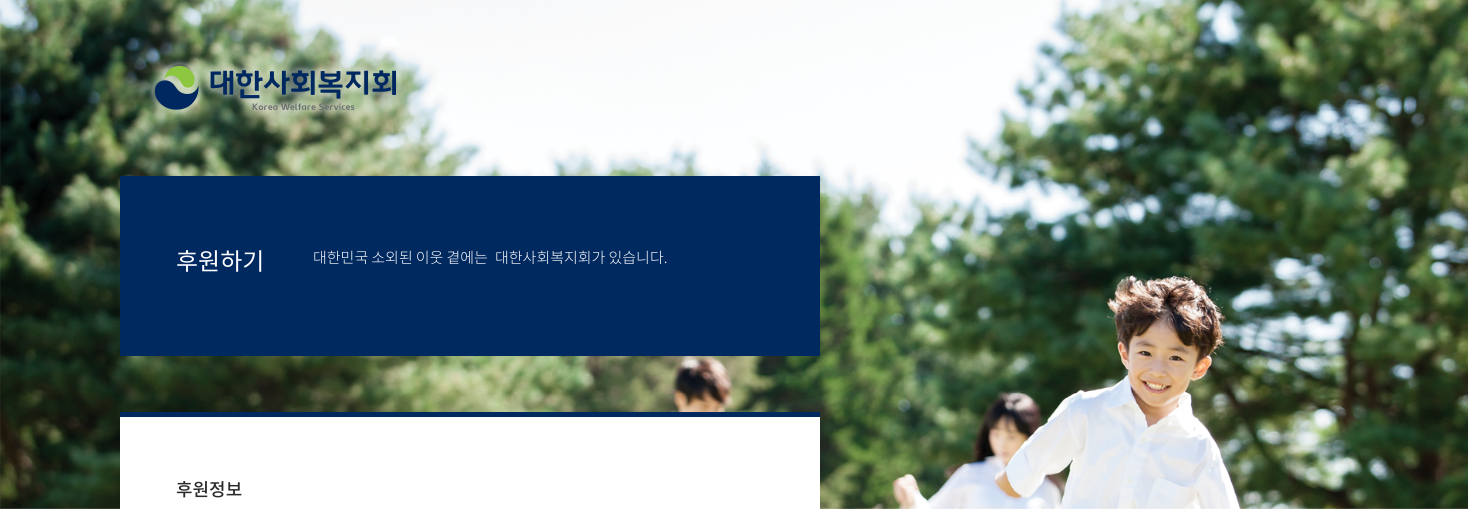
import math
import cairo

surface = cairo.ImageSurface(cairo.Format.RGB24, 1468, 509)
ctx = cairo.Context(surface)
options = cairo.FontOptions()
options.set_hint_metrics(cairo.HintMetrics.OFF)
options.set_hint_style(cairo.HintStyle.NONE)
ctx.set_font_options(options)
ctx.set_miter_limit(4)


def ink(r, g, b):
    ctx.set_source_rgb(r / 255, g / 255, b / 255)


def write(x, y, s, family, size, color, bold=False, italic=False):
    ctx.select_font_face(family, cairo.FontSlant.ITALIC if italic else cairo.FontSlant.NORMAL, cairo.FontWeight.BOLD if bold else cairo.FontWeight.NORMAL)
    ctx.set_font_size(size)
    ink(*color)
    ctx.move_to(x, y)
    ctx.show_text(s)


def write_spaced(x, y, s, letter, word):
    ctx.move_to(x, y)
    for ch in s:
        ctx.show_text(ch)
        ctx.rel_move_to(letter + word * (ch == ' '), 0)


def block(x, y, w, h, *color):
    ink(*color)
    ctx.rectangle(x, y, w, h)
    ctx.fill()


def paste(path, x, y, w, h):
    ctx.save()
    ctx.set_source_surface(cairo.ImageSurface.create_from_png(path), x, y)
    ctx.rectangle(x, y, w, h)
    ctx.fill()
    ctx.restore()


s1 = dict(family="Noto Sans KR", size=24, color=(255, 255, 255))
s2 = dict(family="Noto Sans KR Medium", size=18, color=(43, 43, 43))

ink(255, 255, 255)
ctx.paint()
paste("pic1.png", 0, 0, 1468, 509)
paste("pic2.png", 148, 59, 255, 58)
block(120, 176, 700, 180, 0, 41, 96)
write(176, 270, "후원하기", **s1)
ctx.select_font_face("Noto Sans KR Light")
ctx.set_font_size(15)
write_spaced(313, 263, "대한민국 소외된 이웃 곁에는", 0, -0.25)
write_spaced(495, 263, "대한사회복지회가 있습니다.", 0, -0.25)
block(120, 417, 700, 92, 255, 255, 255)
block(120, 412, 700, 5, 0, 41, 96)
write(176, 496, "후원정보", **s2)
surface.write_to_png("screenshot.png")
